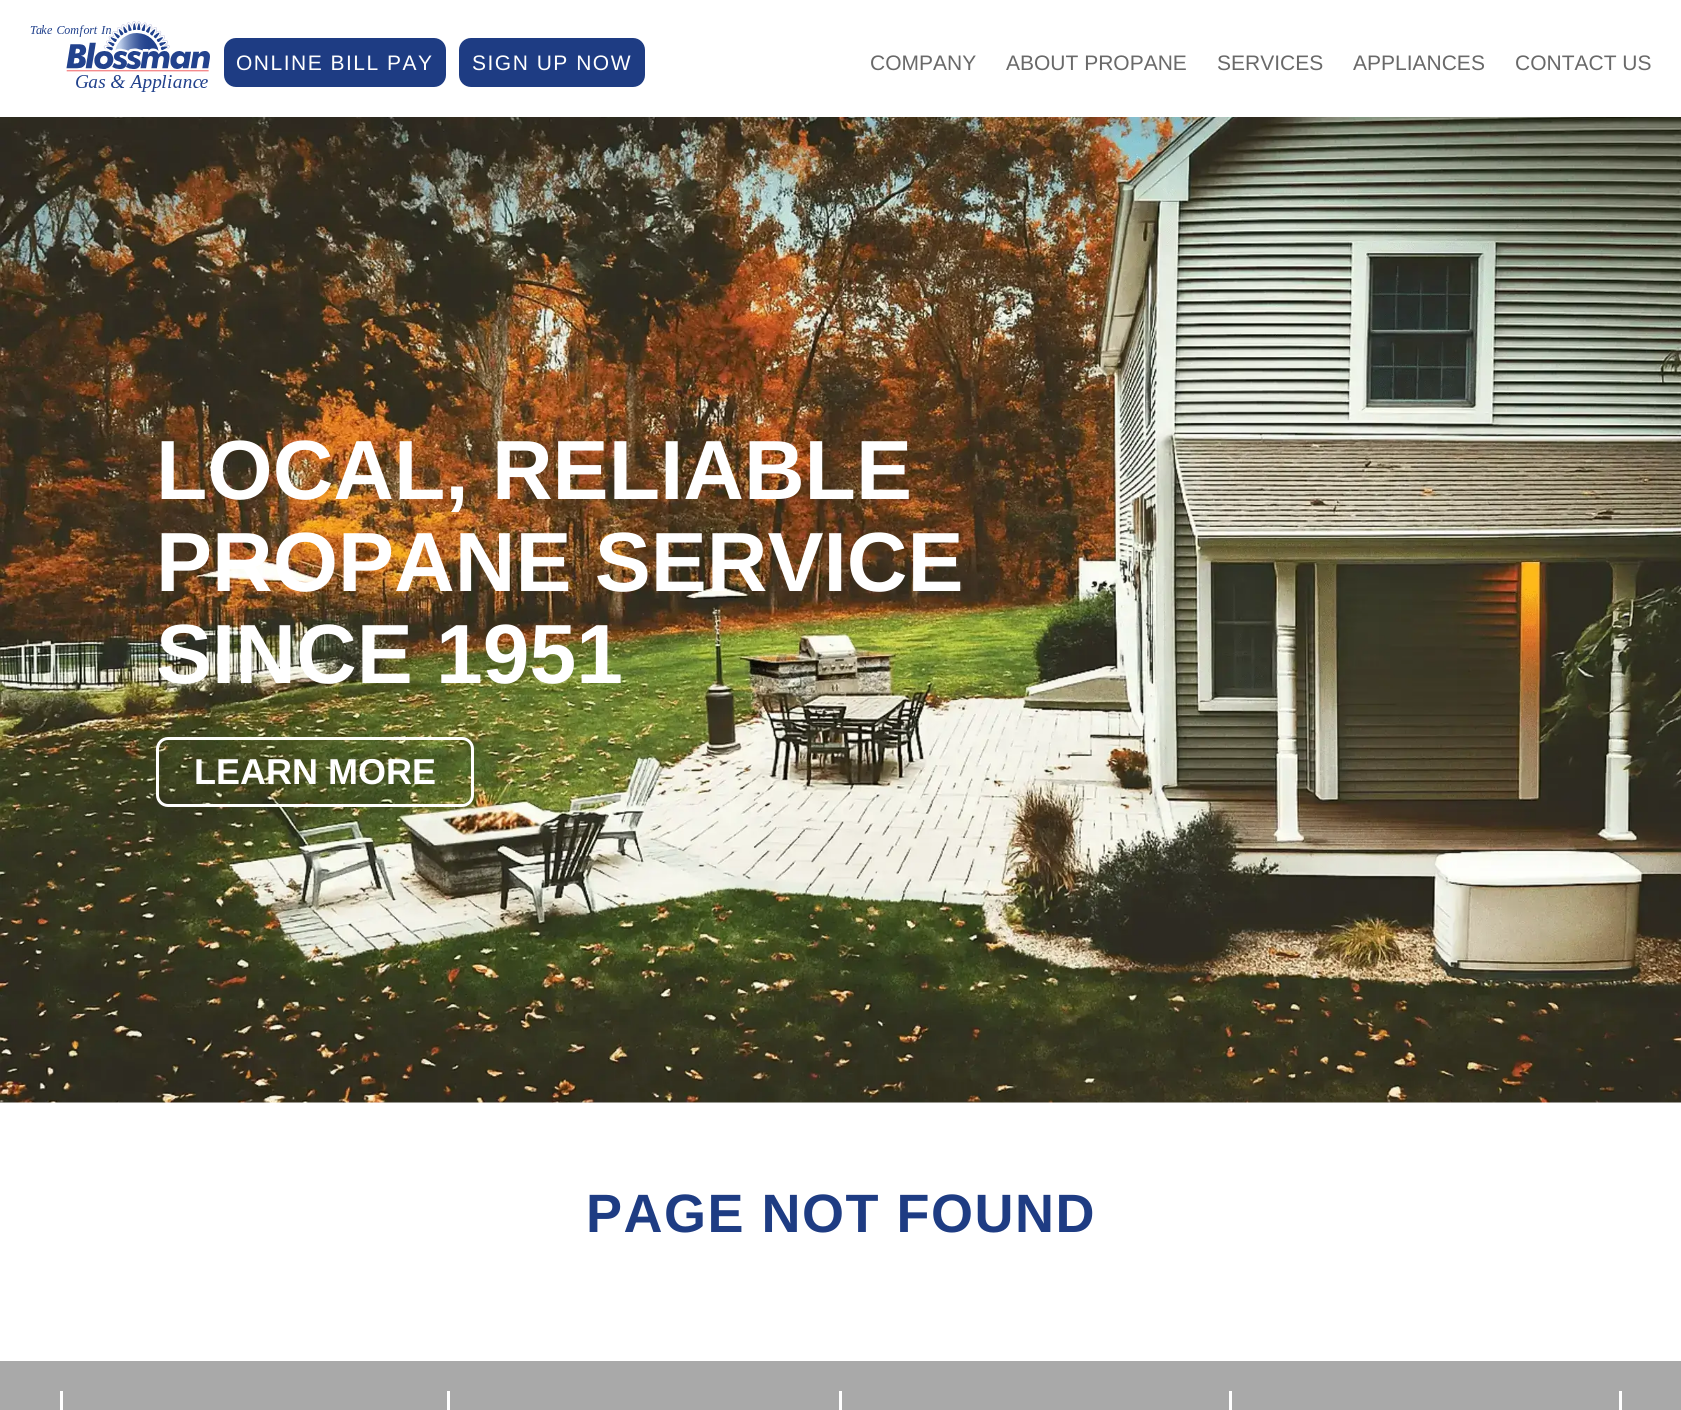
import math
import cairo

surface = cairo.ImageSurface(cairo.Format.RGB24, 1681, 1410)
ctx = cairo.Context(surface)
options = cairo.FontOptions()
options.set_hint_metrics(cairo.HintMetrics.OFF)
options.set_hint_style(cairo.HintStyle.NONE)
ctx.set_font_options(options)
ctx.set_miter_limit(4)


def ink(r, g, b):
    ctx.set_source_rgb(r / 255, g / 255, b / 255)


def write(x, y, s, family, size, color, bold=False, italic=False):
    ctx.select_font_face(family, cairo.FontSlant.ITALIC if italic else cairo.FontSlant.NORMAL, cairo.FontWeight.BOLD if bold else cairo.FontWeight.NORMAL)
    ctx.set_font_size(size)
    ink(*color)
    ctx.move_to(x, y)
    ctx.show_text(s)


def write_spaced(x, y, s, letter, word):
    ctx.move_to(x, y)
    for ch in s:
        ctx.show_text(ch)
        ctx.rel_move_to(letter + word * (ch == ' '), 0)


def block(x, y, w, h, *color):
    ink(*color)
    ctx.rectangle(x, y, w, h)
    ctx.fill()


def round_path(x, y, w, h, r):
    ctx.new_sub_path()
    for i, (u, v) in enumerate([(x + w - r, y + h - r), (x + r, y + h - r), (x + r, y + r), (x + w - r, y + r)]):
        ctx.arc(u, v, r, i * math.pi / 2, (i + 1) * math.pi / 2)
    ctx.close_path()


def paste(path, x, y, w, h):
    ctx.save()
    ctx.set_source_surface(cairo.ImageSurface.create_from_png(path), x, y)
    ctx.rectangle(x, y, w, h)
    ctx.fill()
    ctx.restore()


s1 = dict(family="Liberation Sans", size=21, color=(105, 105, 105))
s2 = dict(family="Liberation Sans", size=84, color=(255, 255, 255), bold=True)
s3 = dict(family="Liberation Sans", size=36, color=(255, 255, 255), bold=True)

ink(255, 255, 255)
ctx.paint()
paste("pic1.png", 30, 21, 180, 71)
ink(30, 60, 131)
round_path(225.5, 39.5, 219, 46, 10.5)
ctx.fill_preserve()
ctx.set_line_width(3)
ctx.stroke()
ctx.select_font_face("Liberation Sans")
ctx.set_font_size(21)
ink(255, 255, 255)
write_spaced(236, 70, "ONLINE BILL PAY", 1.5, 0)
ink(30, 60, 131)
round_path(460.5, 39.5, 183, 46, 10.5)
ctx.fill_preserve()
ctx.stroke()
ink(255, 255, 255)
write_spaced(472, 70, "SIGN UP NOW", 1.5, 0)
write(870, 70, "COMPANY", **s1)
write(1006, 70, "ABOUT PROPANE", **s1)
write(1217, 70, "SERVICES", **s1)
write(1353, 70, "APPLIANCES", **s1)
write(1515, 70, "CONTACT US", **s1)
paste("pic2.png", 0, 117, 1681, 986)
write(156, 499, "LOCAL, RELIABLE", **s2)
write(156, 591, "PROPANE SERVICE", **s2)
write(156, 683, "SINCE 1951", **s2)
round_path(157.5, 738.5, 315, 67, 10.5)
ctx.stroke()
write(194, 784, "LEARN MORE", **s3)
ctx.set_font_size(54)
ink(30, 60, 131)
write_spaced(586, 1232, "PAGE NOT FOUND", 1.5, 0)
block(0, 1361, 1681, 49, 169, 169, 169)
block(447, 1391, 3, 19, 255, 255, 255)
block(60, 1391, 3, 19, 255, 255, 255)
block(839, 1391, 3, 19, 255, 255, 255)
block(1229, 1391, 3, 19, 255, 255, 255)
block(1619, 1391, 3, 19, 255, 255, 255)
surface.write_to_png("screenshot.png")
